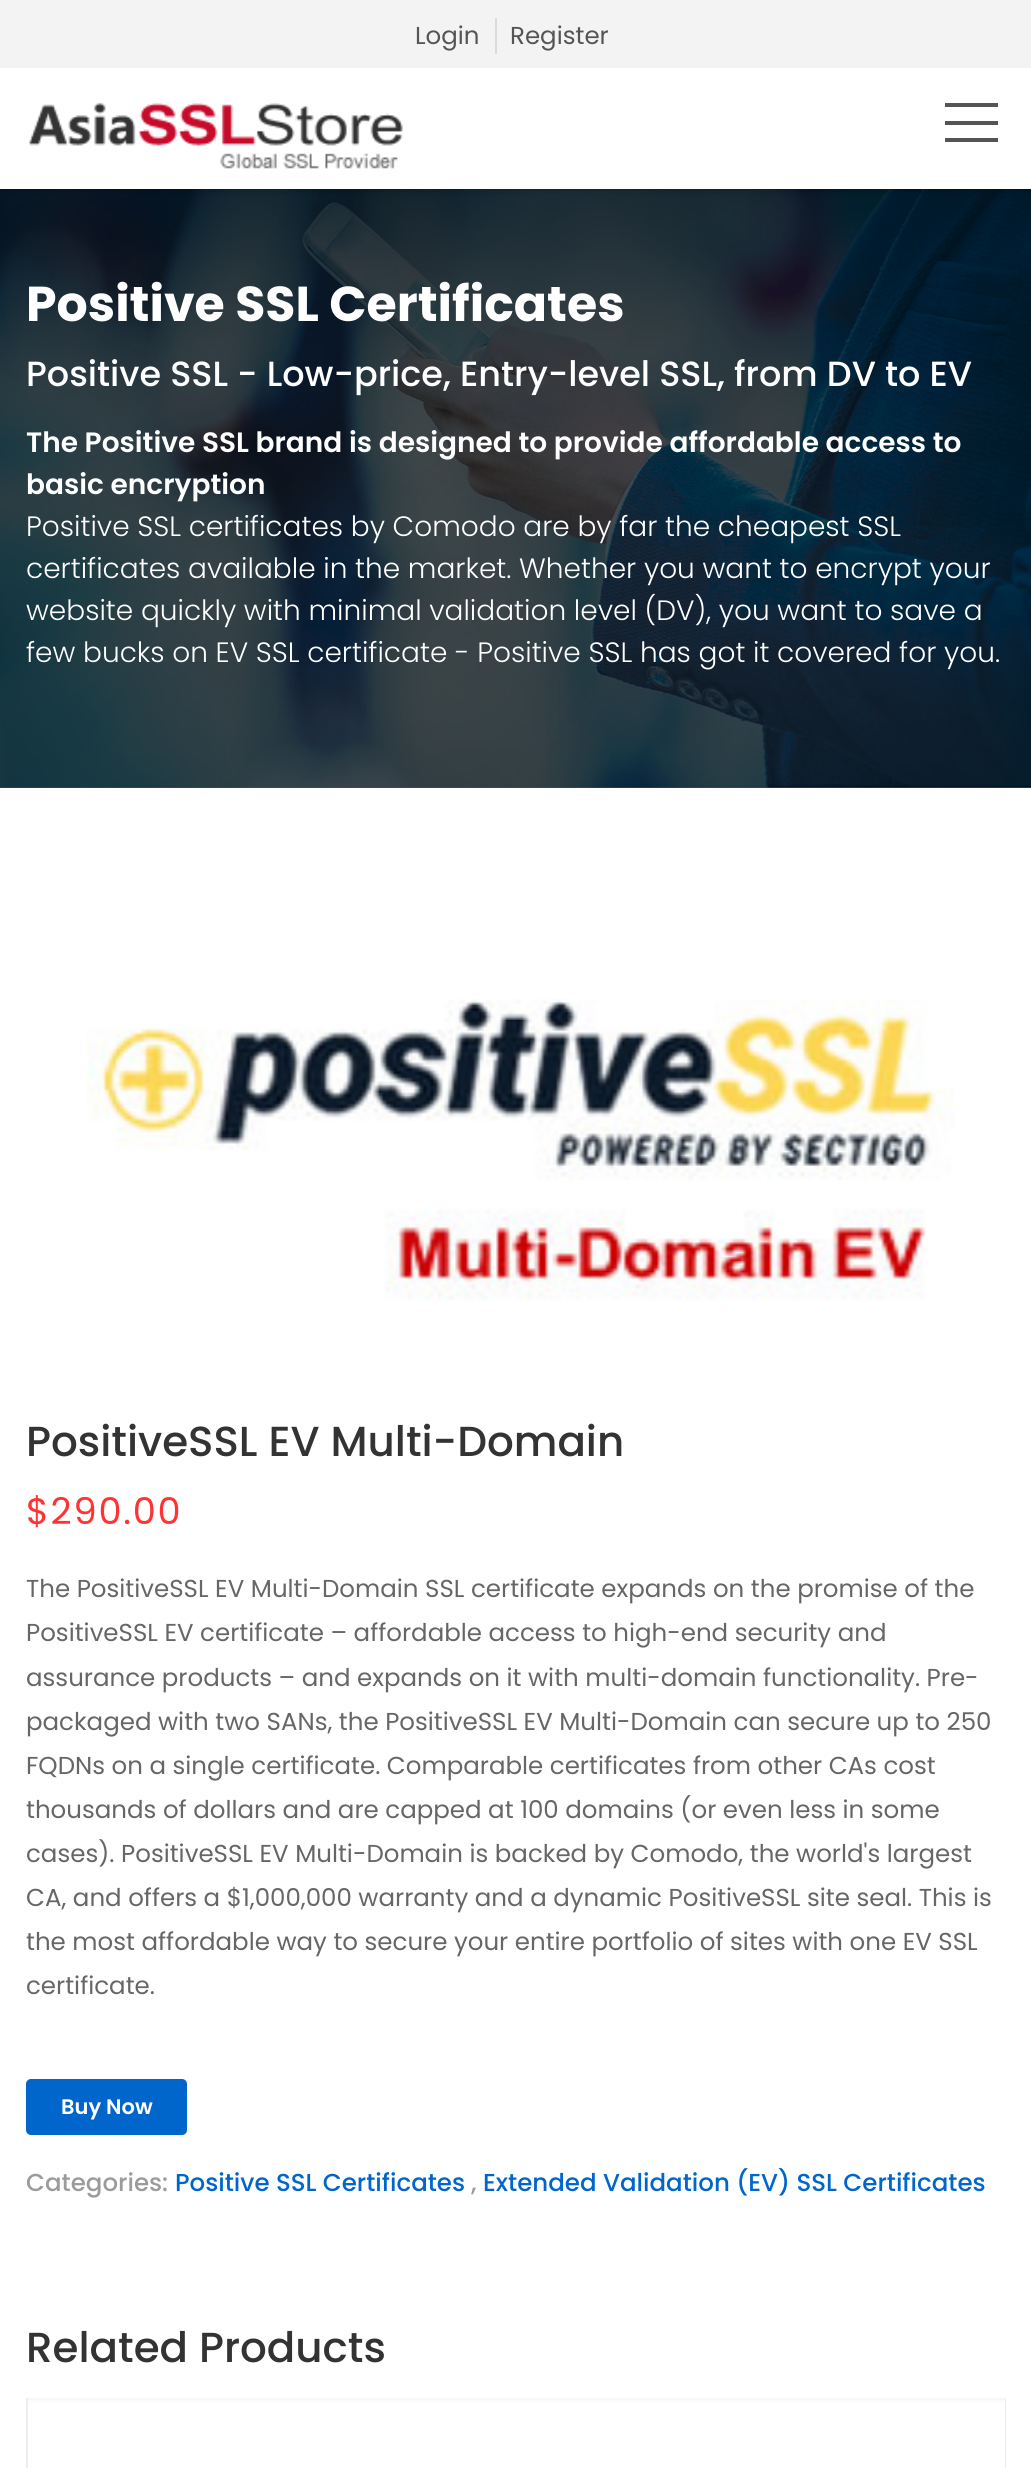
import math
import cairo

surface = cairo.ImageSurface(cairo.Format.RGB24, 1031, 2468)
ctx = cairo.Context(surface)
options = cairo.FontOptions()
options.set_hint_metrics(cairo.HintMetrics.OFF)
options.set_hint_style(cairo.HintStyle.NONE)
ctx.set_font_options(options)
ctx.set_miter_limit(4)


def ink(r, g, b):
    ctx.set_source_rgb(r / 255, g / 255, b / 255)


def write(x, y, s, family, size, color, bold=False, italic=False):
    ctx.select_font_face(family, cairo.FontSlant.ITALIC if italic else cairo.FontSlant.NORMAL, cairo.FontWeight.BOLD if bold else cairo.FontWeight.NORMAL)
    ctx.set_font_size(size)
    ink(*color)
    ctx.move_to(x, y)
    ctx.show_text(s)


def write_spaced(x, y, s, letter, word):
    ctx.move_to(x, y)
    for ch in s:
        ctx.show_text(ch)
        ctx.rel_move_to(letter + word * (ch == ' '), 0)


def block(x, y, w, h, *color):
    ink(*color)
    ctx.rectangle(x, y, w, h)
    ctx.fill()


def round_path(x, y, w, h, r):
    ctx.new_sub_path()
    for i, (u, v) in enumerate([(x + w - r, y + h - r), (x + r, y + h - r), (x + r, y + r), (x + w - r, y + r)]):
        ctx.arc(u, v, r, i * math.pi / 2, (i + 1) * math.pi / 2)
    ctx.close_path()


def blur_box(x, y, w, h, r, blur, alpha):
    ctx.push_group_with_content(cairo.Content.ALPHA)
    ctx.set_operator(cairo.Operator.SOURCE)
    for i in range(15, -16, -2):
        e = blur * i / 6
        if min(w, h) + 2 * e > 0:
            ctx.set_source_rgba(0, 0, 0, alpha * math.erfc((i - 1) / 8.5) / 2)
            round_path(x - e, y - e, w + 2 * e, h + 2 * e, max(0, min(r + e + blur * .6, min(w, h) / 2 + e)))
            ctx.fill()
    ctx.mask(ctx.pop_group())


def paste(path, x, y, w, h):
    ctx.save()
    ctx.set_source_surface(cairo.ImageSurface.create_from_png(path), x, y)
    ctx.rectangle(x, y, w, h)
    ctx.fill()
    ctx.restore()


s1 = dict(family="Poppins", size=24.5, color=(85, 85, 85))
s2 = dict(family="Poppins", size=49, color=(255, 255, 255), bold=True)
s3 = dict(family="Poppins Medium", size=35, color=(255, 255, 255))
s4 = dict(family="Poppins SemiBold", size=28, color=(255, 255, 255))
s5 = dict(family="Poppins Light", size=28, color=(255, 255, 255))
s6 = dict(family="Poppins Medium", size=42, color=(51, 51, 51))
s7 = dict(family="Poppins", size=24.5, color=(102, 102, 102))
s8 = dict(family="Poppins SemiBold", size=21, color=(255, 255, 255))
s9 = dict(family="Poppins Medium", size=24.5, color=(155, 155, 155))
s10 = dict(family="Poppins Medium", size=24.5, color=(0, 102, 204))

ink(255, 255, 255)
ctx.paint()
block(0, 787, 1031, 1, 77, 77, 77)
paste("pic2.png", 0, 189, 1031, 599)
ink(0, 0, 0)
blur_box(0, 0, 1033, 189, 0, 4.5, 0.3)
block(0, 68, 1031, 121, 255, 255, 255)
block(0, 0, 1031, 68, 243, 243, 243)
write(415, 44, "Login", **s1)
block(495, 18, 2, 36, 219, 219, 219)
write(510, 44, "Register", **s1)
paste("pic1.png", 29, 102, 374, 67)
block(945, 121, 53, 4, 85, 85, 85)
block(945, 103, 53, 4, 85, 85, 85)
block(945, 138, 53, 4, 85, 85, 85)
write(26, 321, "Positive SSL Certificates", **s2)
write(26, 386, "Positive SSL - Low-price, Entry-level SSL, from DV to EV", **s3)
write(26, 452, "The Positive SSL brand is designed to provide affordable access to", **s4)
write(26, 494, "basic encryption", **s4)
write(26, 536, "Positive SSL certificates by Comodo are by far the cheapest SSL", **s5)
write(26, 578, "certificates available in the market. Whether you want to encrypt your", **s5)
write(26, 620, "website quickly with minimal validation level (DV), you want to save a", **s5)
write(26, 662, "few bucks on EV SSL certificate - Positive SSL has got it covered for you.", **s5)
paste("pic3.png", 86, 999, 869, 302)
write(26, 1456, "PositiveSSL EV Multi-Domain", **s6)
ctx.select_font_face("Poppins")
ctx.set_font_size(36.75)
ink(255, 51, 51)
write_spaced(26, 1524, "$290.00", 1.75, 0)
write(26, 1597, "The PositiveSSL EV Multi-Domain SSL certificate expands on the promise of the", **s7)
write(26, 1641, "PositiveSSL EV certificate – affordable access to high-end security and", **s7)
write(26, 1686, "assurance products – and expands on it with multi-domain functionality. Pre-", **s7)
write(26, 1730, "packaged with two SANs, the PositiveSSL EV Multi-Domain can secure up to 250", **s7)
write(26, 1774, "FQDNs on a single certificate. Comparable certificates from other CAs cost", **s7)
write(26, 1818, "thousands of dollars and are capped at 100 domains (or even less in some", **s7)
write(26, 1862, "cases). PositiveSSL EV Multi-Domain is backed by Comodo, the world's largest", **s7)
write(26, 1906, "CA, and offers a $1,000,000 warranty and a dynamic PositiveSSL site seal. This is", **s7)
write(26, 1950, "the most affordable way to secure your entire portfolio of sites with one EV SSL", **s7)
write(26, 1994, "certificate.", **s7)
ink(0, 102, 204)
round_path(26, 2079, 161, 56, 5)
ctx.fill()
write(61, 2114, "Buy Now", **s8)
write(26, 2191, "Categories:", **s9)
write(175, 2191, "Positive SSL Certificates", **s10)
write(471, 2191, ",", **s9)
write(483, 2191, "Extended Validation (EV) SSL Certificates", **s10)
write(26, 2362, "Related Products", **s6)
block(28, 2400, 976, 3, 243, 243, 243)
ctx.rectangle(27, 2399, 978, 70)
ink(237, 237, 237)
ctx.stroke()
paste("pic4.png", 28, 2398, 977, 70)
surface.write_to_png("screenshot.png")
